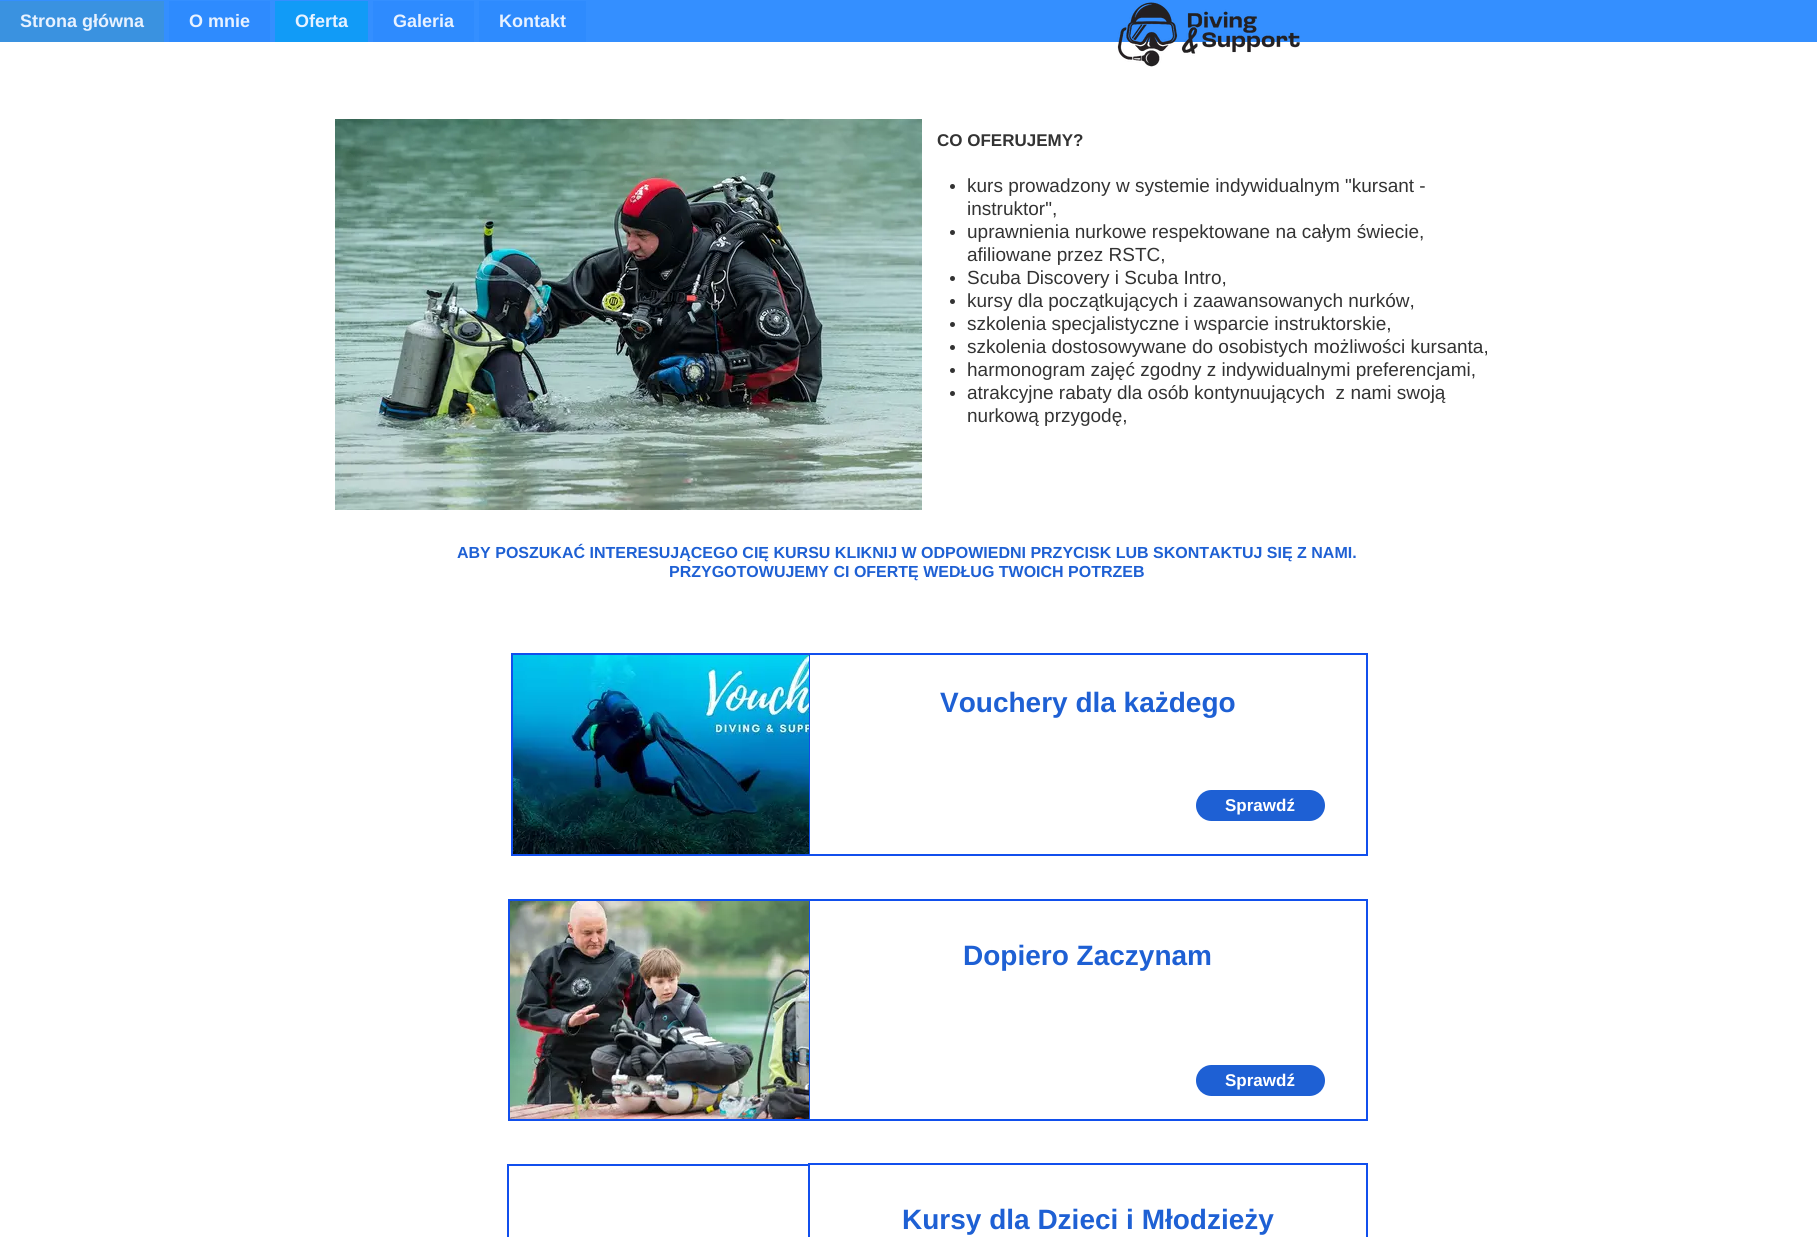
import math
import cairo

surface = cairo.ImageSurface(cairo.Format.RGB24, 1817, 1237)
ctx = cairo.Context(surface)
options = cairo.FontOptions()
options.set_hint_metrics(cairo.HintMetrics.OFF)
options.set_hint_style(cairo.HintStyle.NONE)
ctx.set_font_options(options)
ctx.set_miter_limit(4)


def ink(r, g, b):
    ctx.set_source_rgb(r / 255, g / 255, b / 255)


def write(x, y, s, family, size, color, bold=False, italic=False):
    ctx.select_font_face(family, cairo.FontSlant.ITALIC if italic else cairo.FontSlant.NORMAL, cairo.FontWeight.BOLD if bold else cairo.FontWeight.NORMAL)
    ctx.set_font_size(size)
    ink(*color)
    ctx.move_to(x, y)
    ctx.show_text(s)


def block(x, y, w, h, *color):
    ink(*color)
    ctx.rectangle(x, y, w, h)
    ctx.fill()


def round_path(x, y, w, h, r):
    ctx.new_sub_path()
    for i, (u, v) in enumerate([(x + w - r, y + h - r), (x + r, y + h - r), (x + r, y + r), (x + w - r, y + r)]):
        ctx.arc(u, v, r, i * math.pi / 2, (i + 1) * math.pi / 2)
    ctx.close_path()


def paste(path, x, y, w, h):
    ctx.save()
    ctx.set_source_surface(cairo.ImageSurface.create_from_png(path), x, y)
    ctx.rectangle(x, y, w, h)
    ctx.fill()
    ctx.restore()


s1 = dict(family="Liberation Sans", size=18, color=(232, 242, 255), bold=True)
s2 = dict(family="Liberation Sans", size=17, color=(51, 51, 51), bold=True)
s3 = dict(family="Liberation Sans", size=19, color=(51, 51, 51))
s4 = dict(family="Liberation Sans", size=16, color=(30, 96, 212), bold=True)
s5 = dict(family="Liberation Sans", size=28, color=(30, 96, 212), bold=True)
s6 = dict(family="Liberation Sans", size=17, color=(255, 255, 255), bold=True)

ink(255, 255, 255)
ctx.paint()
block(0, 0, 1817, 42, 52, 143, 255)
block(0, 1, 164, 41, 58, 146, 224)
write(20, 27, "Strona główna", **s1)
block(169, 1, 101, 41, 46, 139, 254)
write(189, 27, "O mnie", **s1)
block(275, 1, 93, 41, 17, 155, 247)
write(295, 27, "Oferta", **s1)
block(373, 1, 101, 41, 46, 139, 254)
write(393, 27, "Galeria", **s1)
block(479, 1, 107, 41, 46, 139, 254)
write(499, 27, "Kontakt", **s1)
paste("pic1.png", 1117, 2, 183, 65)
paste("pic2.png", 335, 119, 587, 391)
write(937, 146, "CO OFERUJEMY?", **s2)
ctx.new_path()
ctx.arc(952.5, 186.5, 2.5, 0, 2 * math.pi)
ctx.fill()
write(967, 192, "kurs prowadzony w systemie indywidualnym \"kursant -", **s3)
write(967, 215, "instruktor\",", **s3)
ctx.new_path()
ctx.arc(952.5, 232.5, 2.5, 0, 2 * math.pi)
ctx.fill()
write(967, 238, "uprawnienia nurkowe respektowane na całym świecie,", **s3)
write(967, 261, "afiliowane przez RSTC,", **s3)
ctx.new_path()
ctx.arc(952.5, 278.5, 2.5, 0, 2 * math.pi)
ctx.fill()
write(967, 284, "Scuba Discovery i Scuba Intro,", **s3)
ctx.new_path()
ctx.arc(952.5, 301.5, 2.5, 0, 2 * math.pi)
ctx.fill()
write(967, 307, "kursy dla początkujących i zaawansowanych nurków,", **s3)
ctx.new_path()
ctx.arc(952.5, 324.5, 2.5, 0, 2 * math.pi)
ctx.fill()
write(967, 330, "szkolenia specjalistyczne i wsparcie instruktorskie,", **s3)
ctx.new_path()
ctx.arc(952.5, 347.5, 2.5, 0, 2 * math.pi)
ctx.fill()
write(967, 353, "szkolenia dostosowywane do osobistych możliwości kursanta,", **s3)
ctx.new_path()
ctx.arc(952.5, 370.5, 2.5, 0, 2 * math.pi)
ctx.fill()
write(967, 376, "harmonogram zajęć zgodny z indywidualnymi preferencjami,", **s3)
ctx.new_path()
ctx.arc(952.5, 393.5, 2.5, 0, 2 * math.pi)
ctx.fill()
write(967, 399, "atrakcyjne rabaty dla osób kontynuujących  z nami swoją", **s3)
write(967, 422, "nurkową przygodę,", **s3)
write(457, 558, "ABY POSZUKAĆ INTERESUJĄCEGO CIĘ KURSU KLIKNIJ W ODPOWIEDNI PRZYCISK LUB SKONTAKTUJ SIĘ Z NAMI.", **s4)
write(669, 577, "PRZYGOTOWUJEMY CI OFERTĘ WEDŁUG TWOICH POTRZEB", **s4)
ctx.rectangle(809, 654, 558, 201)
ink(17, 79, 237)
ctx.stroke()
block(511, 653, 298, 2, 17, 79, 237)
block(511, 854, 298, 2, 17, 79, 237)
block(511, 653, 2, 203, 17, 79, 237)
paste("pic3.png", 513, 655, 296, 199)
write(940, 712, "Vouchery dla każdego", **s5)
round_path(1196, 790, 129, 31, 15.5)
ctx.fill()
write(1225, 811, "Sprawdź", **s6)
ctx.rectangle(809, 900, 558, 220)
ink(17, 79, 237)
ctx.stroke()
block(508, 899, 301, 2, 17, 79, 237)
block(508, 1119, 301, 2, 17, 79, 237)
block(508, 899, 2, 222, 17, 79, 237)
paste("pic4.png", 510, 901, 299, 218)
write(963, 965, "Dopiero Zaczynam", **s5)
round_path(1196, 1065, 129, 31, 15.5)
ctx.fill()
write(1225, 1086, "Sprawdź", **s6)
ctx.rectangle(809, 1164, 558, 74)
ink(17, 79, 237)
ctx.stroke()
block(507, 1164, 302, 2, 17, 79, 237)
block(507, 1164, 2, 73, 17, 79, 237)
write(902, 1229, "Kursy dla Dzieci i Młodzieży", **s5)
surface.write_to_png("screenshot.png")
